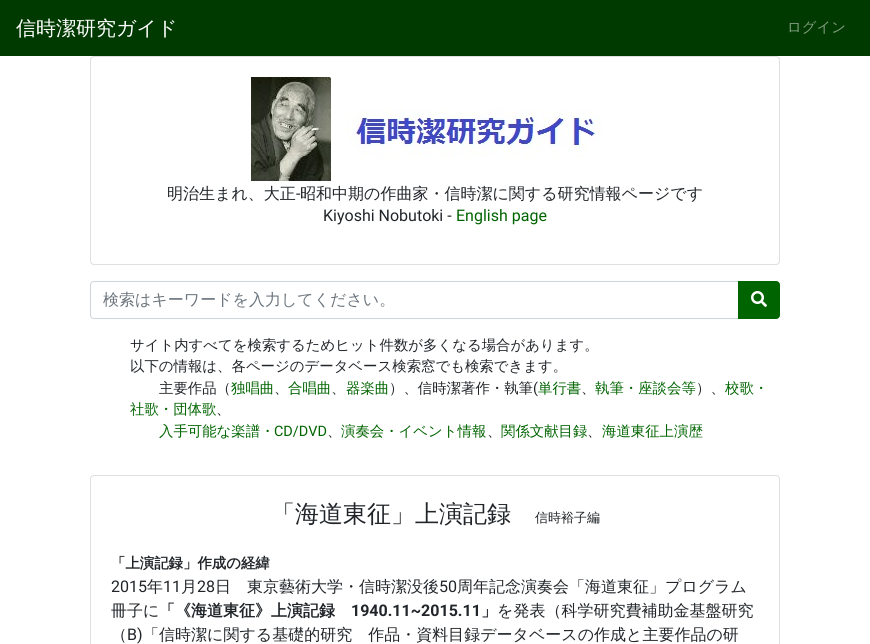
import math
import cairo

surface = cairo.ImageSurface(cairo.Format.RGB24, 870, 644)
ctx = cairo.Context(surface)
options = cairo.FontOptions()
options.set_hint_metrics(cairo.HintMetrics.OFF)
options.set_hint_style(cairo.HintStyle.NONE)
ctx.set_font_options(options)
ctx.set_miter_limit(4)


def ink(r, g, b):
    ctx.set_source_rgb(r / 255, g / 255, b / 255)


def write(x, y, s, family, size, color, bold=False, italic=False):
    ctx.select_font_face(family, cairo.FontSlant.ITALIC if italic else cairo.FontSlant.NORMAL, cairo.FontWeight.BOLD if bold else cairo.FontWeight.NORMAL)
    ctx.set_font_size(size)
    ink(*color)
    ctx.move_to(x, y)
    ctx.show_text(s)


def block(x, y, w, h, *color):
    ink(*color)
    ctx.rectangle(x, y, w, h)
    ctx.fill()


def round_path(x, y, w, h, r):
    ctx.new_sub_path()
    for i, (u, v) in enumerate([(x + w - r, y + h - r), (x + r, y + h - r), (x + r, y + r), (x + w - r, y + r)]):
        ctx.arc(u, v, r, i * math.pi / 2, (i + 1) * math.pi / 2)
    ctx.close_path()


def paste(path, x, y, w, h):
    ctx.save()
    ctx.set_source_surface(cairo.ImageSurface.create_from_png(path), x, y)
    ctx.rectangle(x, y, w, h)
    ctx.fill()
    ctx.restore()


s1 = dict(family="WenQuanYi Zen Hei Medium", size=20, color=(255, 255, 255))
s2 = dict(family="WenQuanYi Zen Hei Medium", size=14.4, color=(128, 157, 128))
s3 = dict(family="WenQuanYi Zen Hei Medium", size=16, color=(33, 37, 41))
s4 = dict(family="Roboto", size=16, color=(33, 37, 41))
s5 = dict(family="Roboto", size=16, color=(0, 100, 0))
s6 = dict(family="WenQuanYi Zen Hei Medium", size=16, color=(108, 117, 125))
s7 = dict(family="WenQuanYi Zen Hei Medium", size=14.4, color=(33, 37, 41))
s8 = dict(family="WenQuanYi Zen Hei Medium", size=14.4, color=(0, 100, 0))
s9 = dict(family="Roboto", size=14.4, color=(33, 37, 41))
s10 = dict(family="Roboto", size=14.4, color=(0, 100, 0))
s11 = dict(family="WenQuanYi Zen Hei Medium", size=24, color=(33, 37, 41))
s12 = dict(family="WenQuanYi Zen Hei Medium", size=13, color=(33, 37, 41))
s13 = dict(family="WenQuanYi Zen Hei", size=14.4, color=(33, 37, 41), bold=True)
s14 = dict(family="WenQuanYi Zen Hei", size=16, color=(33, 37, 41), bold=True)
s15 = dict(family="Roboto", size=16, color=(33, 37, 41), bold=True)

ink(255, 255, 255)
ctx.paint()
block(0, 0, 870, 56, 0, 58, 0)
write(16, 35, "信時潔研究ガイド", **s1)
write(787, 32, "ログイン", **s2)
round_path(90.5, 56.5, 689, 208, 3.5)
ink(223, 223, 223)
ctx.set_line_width(1)
ctx.stroke()
paste("pic1.png", 251, 77, 351, 105)
write(167, 199, "明治生まれ、大正", **s3)
write(296, 199, "-", **s4)
write(300, 199, "昭和中期の作曲家・信時潔に関する研究情報ページです", **s3)
write(323, 221, "Kiyoshi Nobutoki -", **s4)
write(456, 221, "English page", **s5)
ctx.new_path()
ctx.move_to(94, 281.5)
ctx.line_to(738.5, 281.5)
ctx.line_to(738.5, 318.5)
ctx.line_to(94, 318.5)
ctx.curve_to(92, 318.5, 90.5, 317, 90.5, 315)
ctx.line_to(90.5, 285)
ctx.curve_to(90.5, 283, 92, 281.5, 94, 281.5)
ctx.close_path()
ink(206, 212, 218)
ctx.stroke()
write(103, 305, "検索はキーワードを入力してください。", **s6)
ink(0, 100, 0)
ctx.new_path()
ctx.move_to(738.5, 281.5)
ctx.line_to(776, 281.5)
ctx.curve_to(778, 281.5, 779.5, 283, 779.5, 285)
ctx.line_to(779.5, 315)
ctx.curve_to(779.5, 317, 778, 318.5, 776, 318.5)
ctx.line_to(738.5, 318.5)
ctx.close_path()
ctx.fill_preserve()
ctx.stroke()
paste("pic2.png", 751, 291, 16, 16)
write(130, 350, "サイト内すべてを検索するためヒット件数が多くなる場合があります。", **s7)
write(130, 371, "以下の情報は、各ページのデータベース検索窓でも検索できます。", **s7)
write(159, 393, "主要作品（", **s7)
write(231, 393, "独唱曲", **s8)
write(274, 393, "、", **s7)
write(288, 393, "合唱曲", **s8)
write(331, 393, "、", **s7)
write(346, 393, "器楽曲", **s8)
write(389, 393, "）、信時潔著作・執筆", **s7)
write(533, 393, "(", **s9)
write(538, 393, "単行書", **s8)
write(581, 393, "、", **s7)
write(595, 393, "執筆・座談会等", **s8)
write(696, 393, "）、", **s7)
write(725, 393, "校歌・", **s8)
write(130, 414, "社歌・団体歌", **s8)
write(216, 414, "、", **s7)
write(159, 436, "入手可能な楽譜・", **s8)
write(274, 436, "CD/DVD", **s10)
write(327, 436, "、", **s7)
write(341, 436, "演奏会・イベント情報", **s8)
write(487, 436, "、", **s7)
write(501, 436, "関係文献目録", **s8)
write(587, 436, "、", **s7)
write(602, 436, "海道東征上演歴", **s8)
round_path(90.5, 475.5, 689, 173, 3.5)
ink(223, 223, 223)
ctx.stroke()
write(271, 522, "「海道東征」上演記録", **s11)
write(535, 522, "信時裕子編", **s12)
write(111, 568, "「上演記録」作成の経緯", **s13)
write(111, 592, "2015", **s4)
write(147, 592, "年", **s3)
write(163, 592, "11", **s4)
write(181, 592, "月", **s3)
write(197, 592, "28", **s4)
write(215, 592, "日　東京藝術大学・信時潔没後", **s3)
write(439, 592, "50", **s4)
write(457, 592, "周年記念演奏会「海道東征」プログラム", **s3)
write(111, 616, "冊子に", **s3)
write(159, 616, "「《海道東征》上演記録", **s14)
write(351, 616, "1940.11~2015.11", **s15)
write(481, 616, "」", **s14)
write(497, 616, "を発表（科学研究費補助金基盤研究", **s3)
write(111, 640, "（", **s3)
write(127, 640, "B)", **s4)
write(143, 640, "「信時潔に関する基礎的研究　作品・資料目録データベースの作成と主要作品の研", **s3)
surface.write_to_png("screenshot.png")
